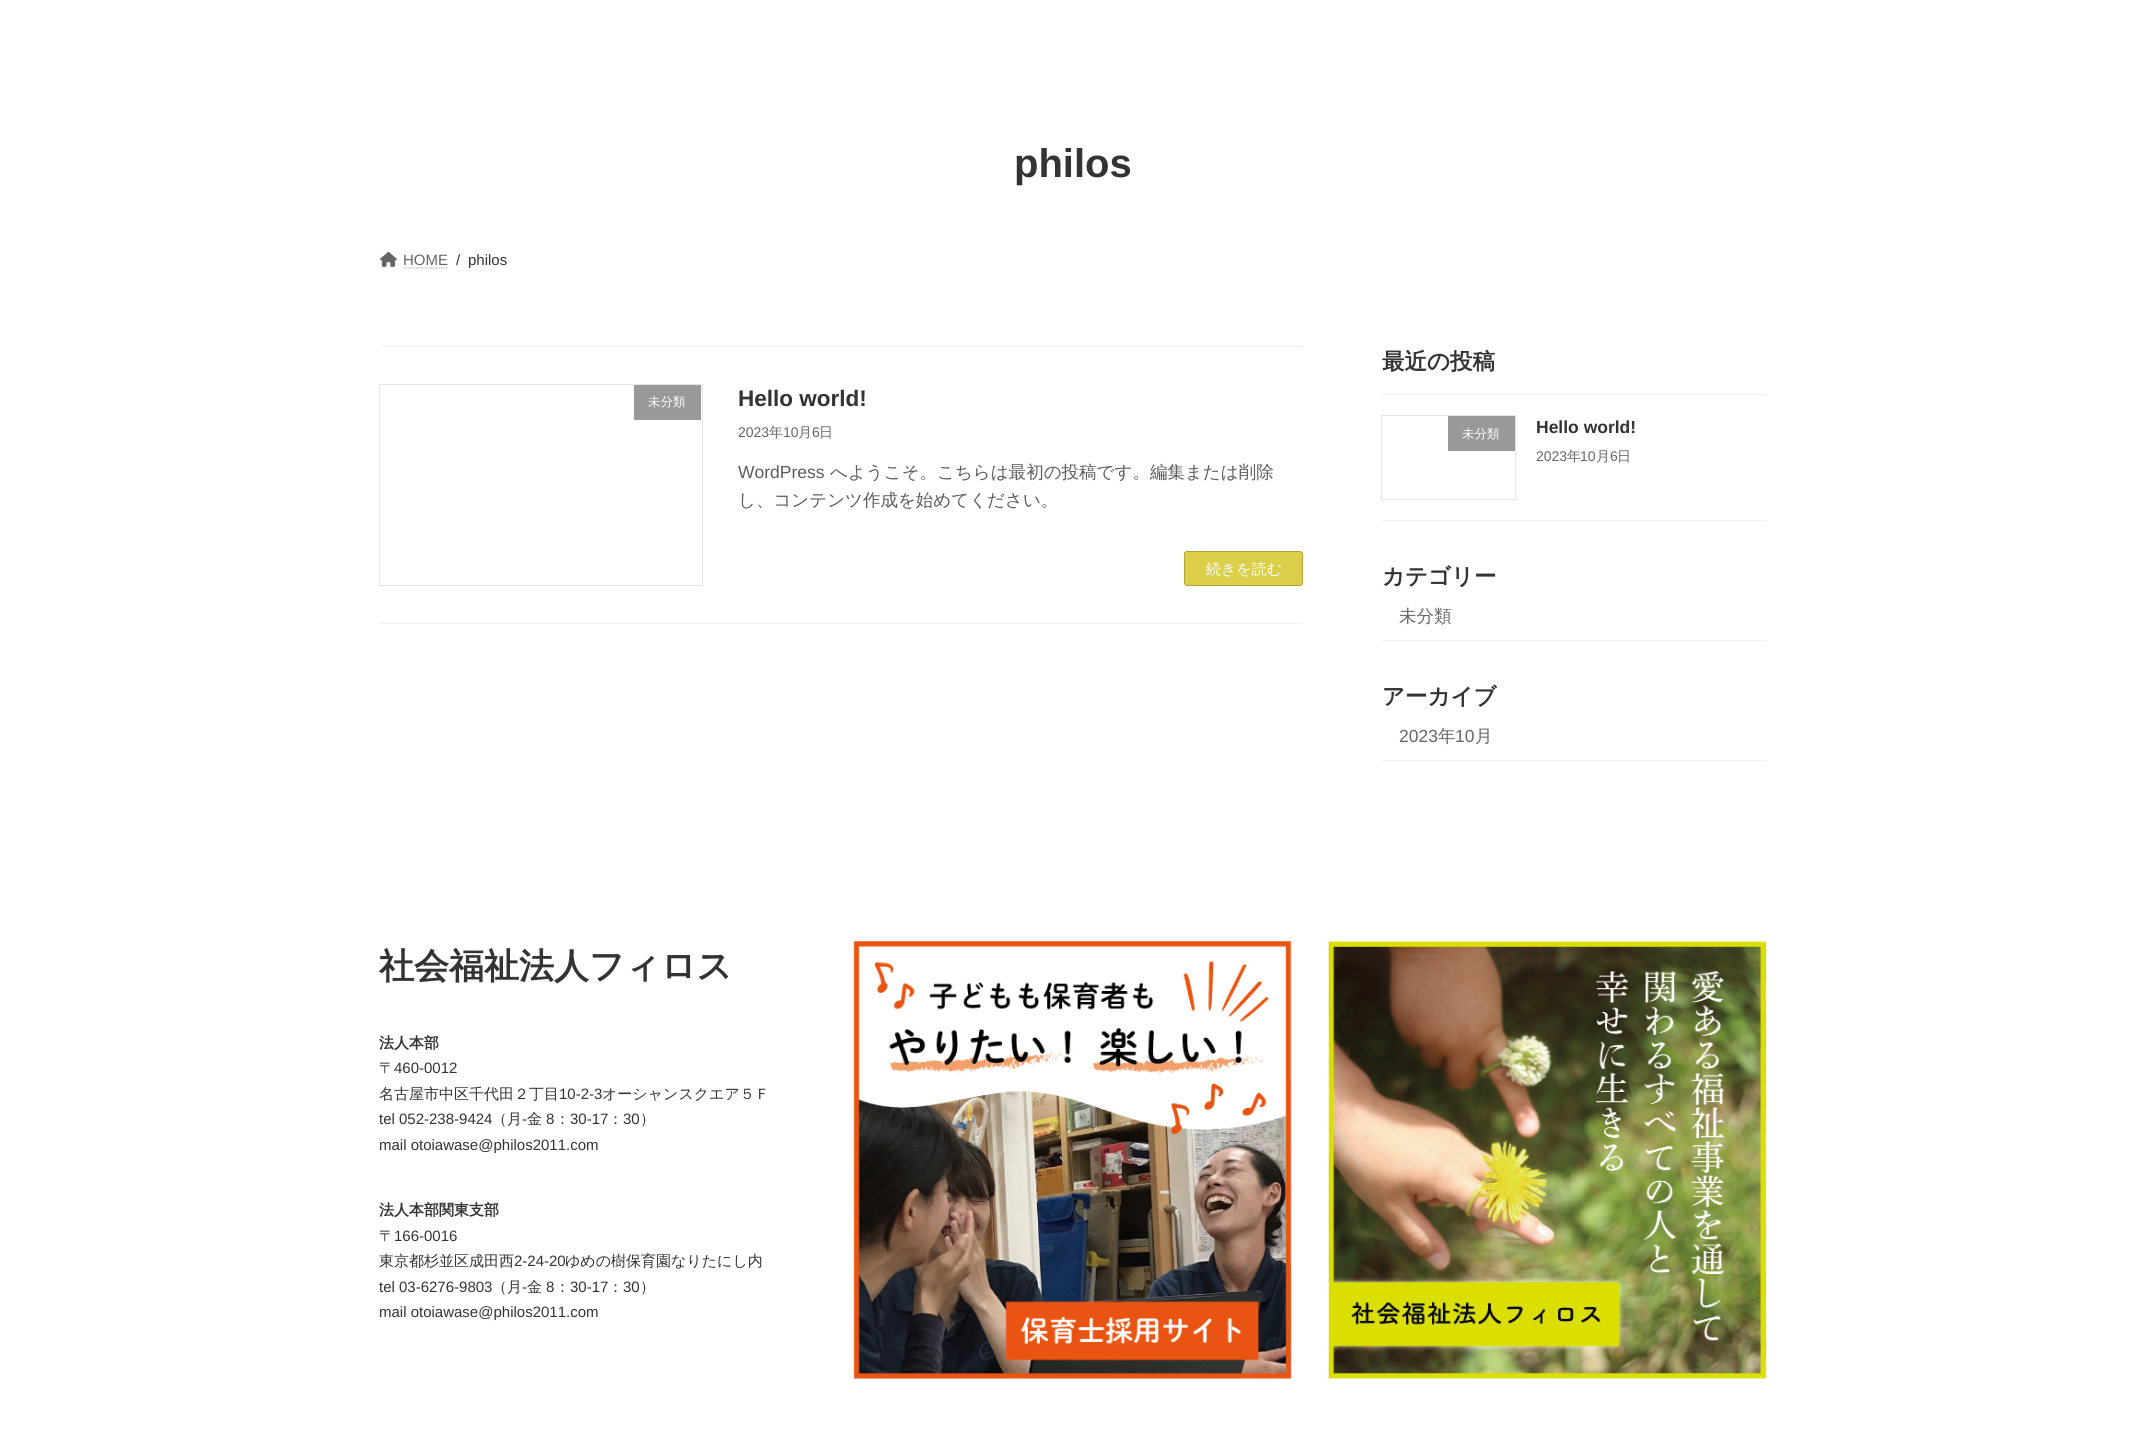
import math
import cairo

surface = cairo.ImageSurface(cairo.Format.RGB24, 2144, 1430)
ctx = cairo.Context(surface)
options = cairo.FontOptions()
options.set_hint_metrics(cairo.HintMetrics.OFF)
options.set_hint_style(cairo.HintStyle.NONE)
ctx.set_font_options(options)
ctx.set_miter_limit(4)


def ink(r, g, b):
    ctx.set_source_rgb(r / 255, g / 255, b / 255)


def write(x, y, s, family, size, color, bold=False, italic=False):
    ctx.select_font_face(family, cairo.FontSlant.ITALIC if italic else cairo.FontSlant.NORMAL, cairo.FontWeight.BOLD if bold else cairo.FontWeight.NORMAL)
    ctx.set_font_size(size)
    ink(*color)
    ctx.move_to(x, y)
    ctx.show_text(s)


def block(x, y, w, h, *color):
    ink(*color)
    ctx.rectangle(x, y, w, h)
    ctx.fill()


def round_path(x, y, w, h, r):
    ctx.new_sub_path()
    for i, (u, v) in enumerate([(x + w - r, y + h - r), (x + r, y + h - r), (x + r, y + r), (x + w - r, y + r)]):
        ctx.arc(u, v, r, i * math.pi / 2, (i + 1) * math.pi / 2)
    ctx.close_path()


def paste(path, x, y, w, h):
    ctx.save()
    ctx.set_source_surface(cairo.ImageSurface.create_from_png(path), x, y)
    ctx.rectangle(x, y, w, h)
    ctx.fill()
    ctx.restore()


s1 = dict(family="Liberation Sans", size=40, color=(51, 51, 51), bold=True)
s2 = dict(family="Liberation Sans", size=15, color=(102, 102, 102))
s3 = dict(family="Liberation Sans", size=15, color=(51, 51, 51))
s4 = dict(family="WenQuanYi Zen Hei Medium", size=12.5, color=(255, 255, 255))
s5 = dict(family="Liberation Sans", size=22.5, color=(51, 51, 51), bold=True)
s6 = dict(family="Liberation Sans", size=14, color=(102, 102, 102))
s7 = dict(family="WenQuanYi Zen Hei Medium", size=14, color=(102, 102, 102))
s8 = dict(family="Liberation Sans", size=17.5, color=(92, 92, 92))
s9 = dict(family="WenQuanYi Zen Hei Medium", size=17.5, color=(92, 92, 92))
s10 = dict(family="WenQuanYi Zen Hei Medium", size=15, color=(255, 255, 255))
s11 = dict(family="WenQuanYi Zen Hei", size=22.5, color=(51, 51, 51), bold=True)
s12 = dict(family="Liberation Sans", size=17.5, color=(51, 51, 51), bold=True)
s13 = dict(family="WenQuanYi Zen Hei Medium", size=17.5, color=(102, 102, 102))
s14 = dict(family="Liberation Sans", size=17.5, color=(102, 102, 102))
s15 = dict(family="WenQuanYi Zen Hei", size=35, color=(51, 51, 51), bold=True)
s16 = dict(family="WenQuanYi Zen Hei", size=15, color=(51, 51, 51), bold=True)
s17 = dict(family="WenQuanYi Zen Hei Medium", size=15, color=(51, 51, 51))

ink(255, 255, 255)
ctx.paint()
write(1014, 177, "philos", **s1)
paste("pic1.png", 380, 251, 17, 16)
write(403, 265, "HOME", **s2)
ctx.new_path()
ctx.move_to(403.5, 268)
ctx.line_to(448.5, 268)
ink(179, 179, 179)
ctx.set_line_width(1.2)
ctx.set_dash([1.25, 1.25])
ctx.stroke()
write(456, 265, "/", **s3)
write(468, 265, "philos", **s3)
block(379, 346, 924, 1, 240, 240, 240)
block(379, 623, 924, 1, 240, 240, 240)
ctx.rectangle(379.5, 384.5, 323, 201)
ink(229, 229, 229)
ctx.set_line_width(1)
ctx.set_dash([])
ctx.stroke()
block(634, 385, 67, 35, 153, 153, 153)
write(648, 406, "未分類", **s4)
write(738, 406, "Hello world!", **s5)
write(738, 437, "2023", **s6)
write(769, 437, "年", **s7)
write(783, 437, "10", **s6)
write(798, 437, "月", **s7)
write(812, 437, "6", **s6)
write(819, 437, "日", **s7)
write(738, 478, "WordPress", **s8)
write(830, 478, "へようこそ。こちらは最初の投稿です。編集または削除", **s9)
write(738, 506, "し、コンテンツ作成を始めてください。", **s9)
ink(219, 207, 74)
round_path(1184.5, 551.5, 118, 34, 2.5)
ctx.fill_preserve()
ink(175, 166, 59)
ctx.stroke()
write(1206, 574, "続きを読む", **s10)
write(1382, 369, "最近の投稿", **s11)
block(1381, 394, 385, 1, 240, 240, 240)
block(1381, 520, 385, 1, 240, 240, 240)
ctx.rectangle(1381.5, 415.5, 134, 84)
ink(229, 229, 229)
ctx.stroke()
block(1448, 416, 67, 35, 153, 153, 153)
write(1462, 438, "未分類", **s4)
write(1536, 433, "Hello world!", **s12)
write(1536, 461, "2023", **s6)
write(1567, 461, "年", **s7)
write(1580, 461, "10", **s6)
write(1596, 461, "月", **s7)
write(1610, 461, "6", **s6)
write(1617, 461, "日", **s7)
write(1382, 584, "カテゴリー", **s11)
block(1381, 640, 385, 1, 240, 240, 240)
write(1399, 622, "未分類", **s13)
write(1382, 704, "アーカイブ", **s11)
block(1381, 760, 385, 1, 240, 240, 240)
write(1399, 742, "2023", **s14)
write(1438, 742, "年", **s13)
write(1455, 742, "10", **s14)
write(1475, 742, "月", **s13)
write(379, 978, "社会福祉法人フィロス", **s15)
write(379, 1048, "法人本部", **s16)
write(379, 1073, "〒", **s17)
write(394, 1073, "460-0012", **s3)
write(379, 1099, "名古屋市中区千代田２丁目", **s17)
write(559, 1099, "10-2-3", **s3)
write(602, 1099, "オーシャンスクエア５Ｆ", **s17)
write(379, 1124, "tel 052-238-9424", **s3)
write(492, 1124, "（月", **s17)
write(522, 1124, "-", **s3)
write(527, 1124, "金", **s17)
write(546, 1124, "8", **s3)
write(555, 1124, "：", **s17)
write(570, 1124, "30-17", **s3)
write(608, 1124, "：", **s17)
write(623, 1124, "30", **s3)
write(640, 1124, "）", **s17)
write(379, 1150, "mail otoiawase@philos2011.com", **s3)
write(379, 1215, "法人本部関東支部", **s16)
write(379, 1241, "〒", **s17)
write(394, 1241, "166-0016", **s3)
write(379, 1266, "東京都杉並区成田西", **s17)
write(514, 1266, "2-24-20", **s3)
write(565, 1266, "ゆめの樹保育園なりたにし内", **s17)
write(379, 1292, "tel 03-6276-9803", **s3)
write(492, 1292, "（月", **s17)
write(522, 1292, "-", **s3)
write(527, 1292, "金", **s17)
write(546, 1292, "8", **s3)
write(555, 1292, "：", **s17)
write(570, 1292, "30-17", **s3)
write(608, 1292, "：", **s17)
write(623, 1292, "30", **s3)
write(640, 1292, "）", **s17)
write(379, 1317, "mail otoiawase@philos2011.com", **s3)
paste("pic2.png", 853, 941, 439, 438)
paste("pic3.png", 1328, 941, 439, 438)
surface.write_to_png("screenshot.png")
